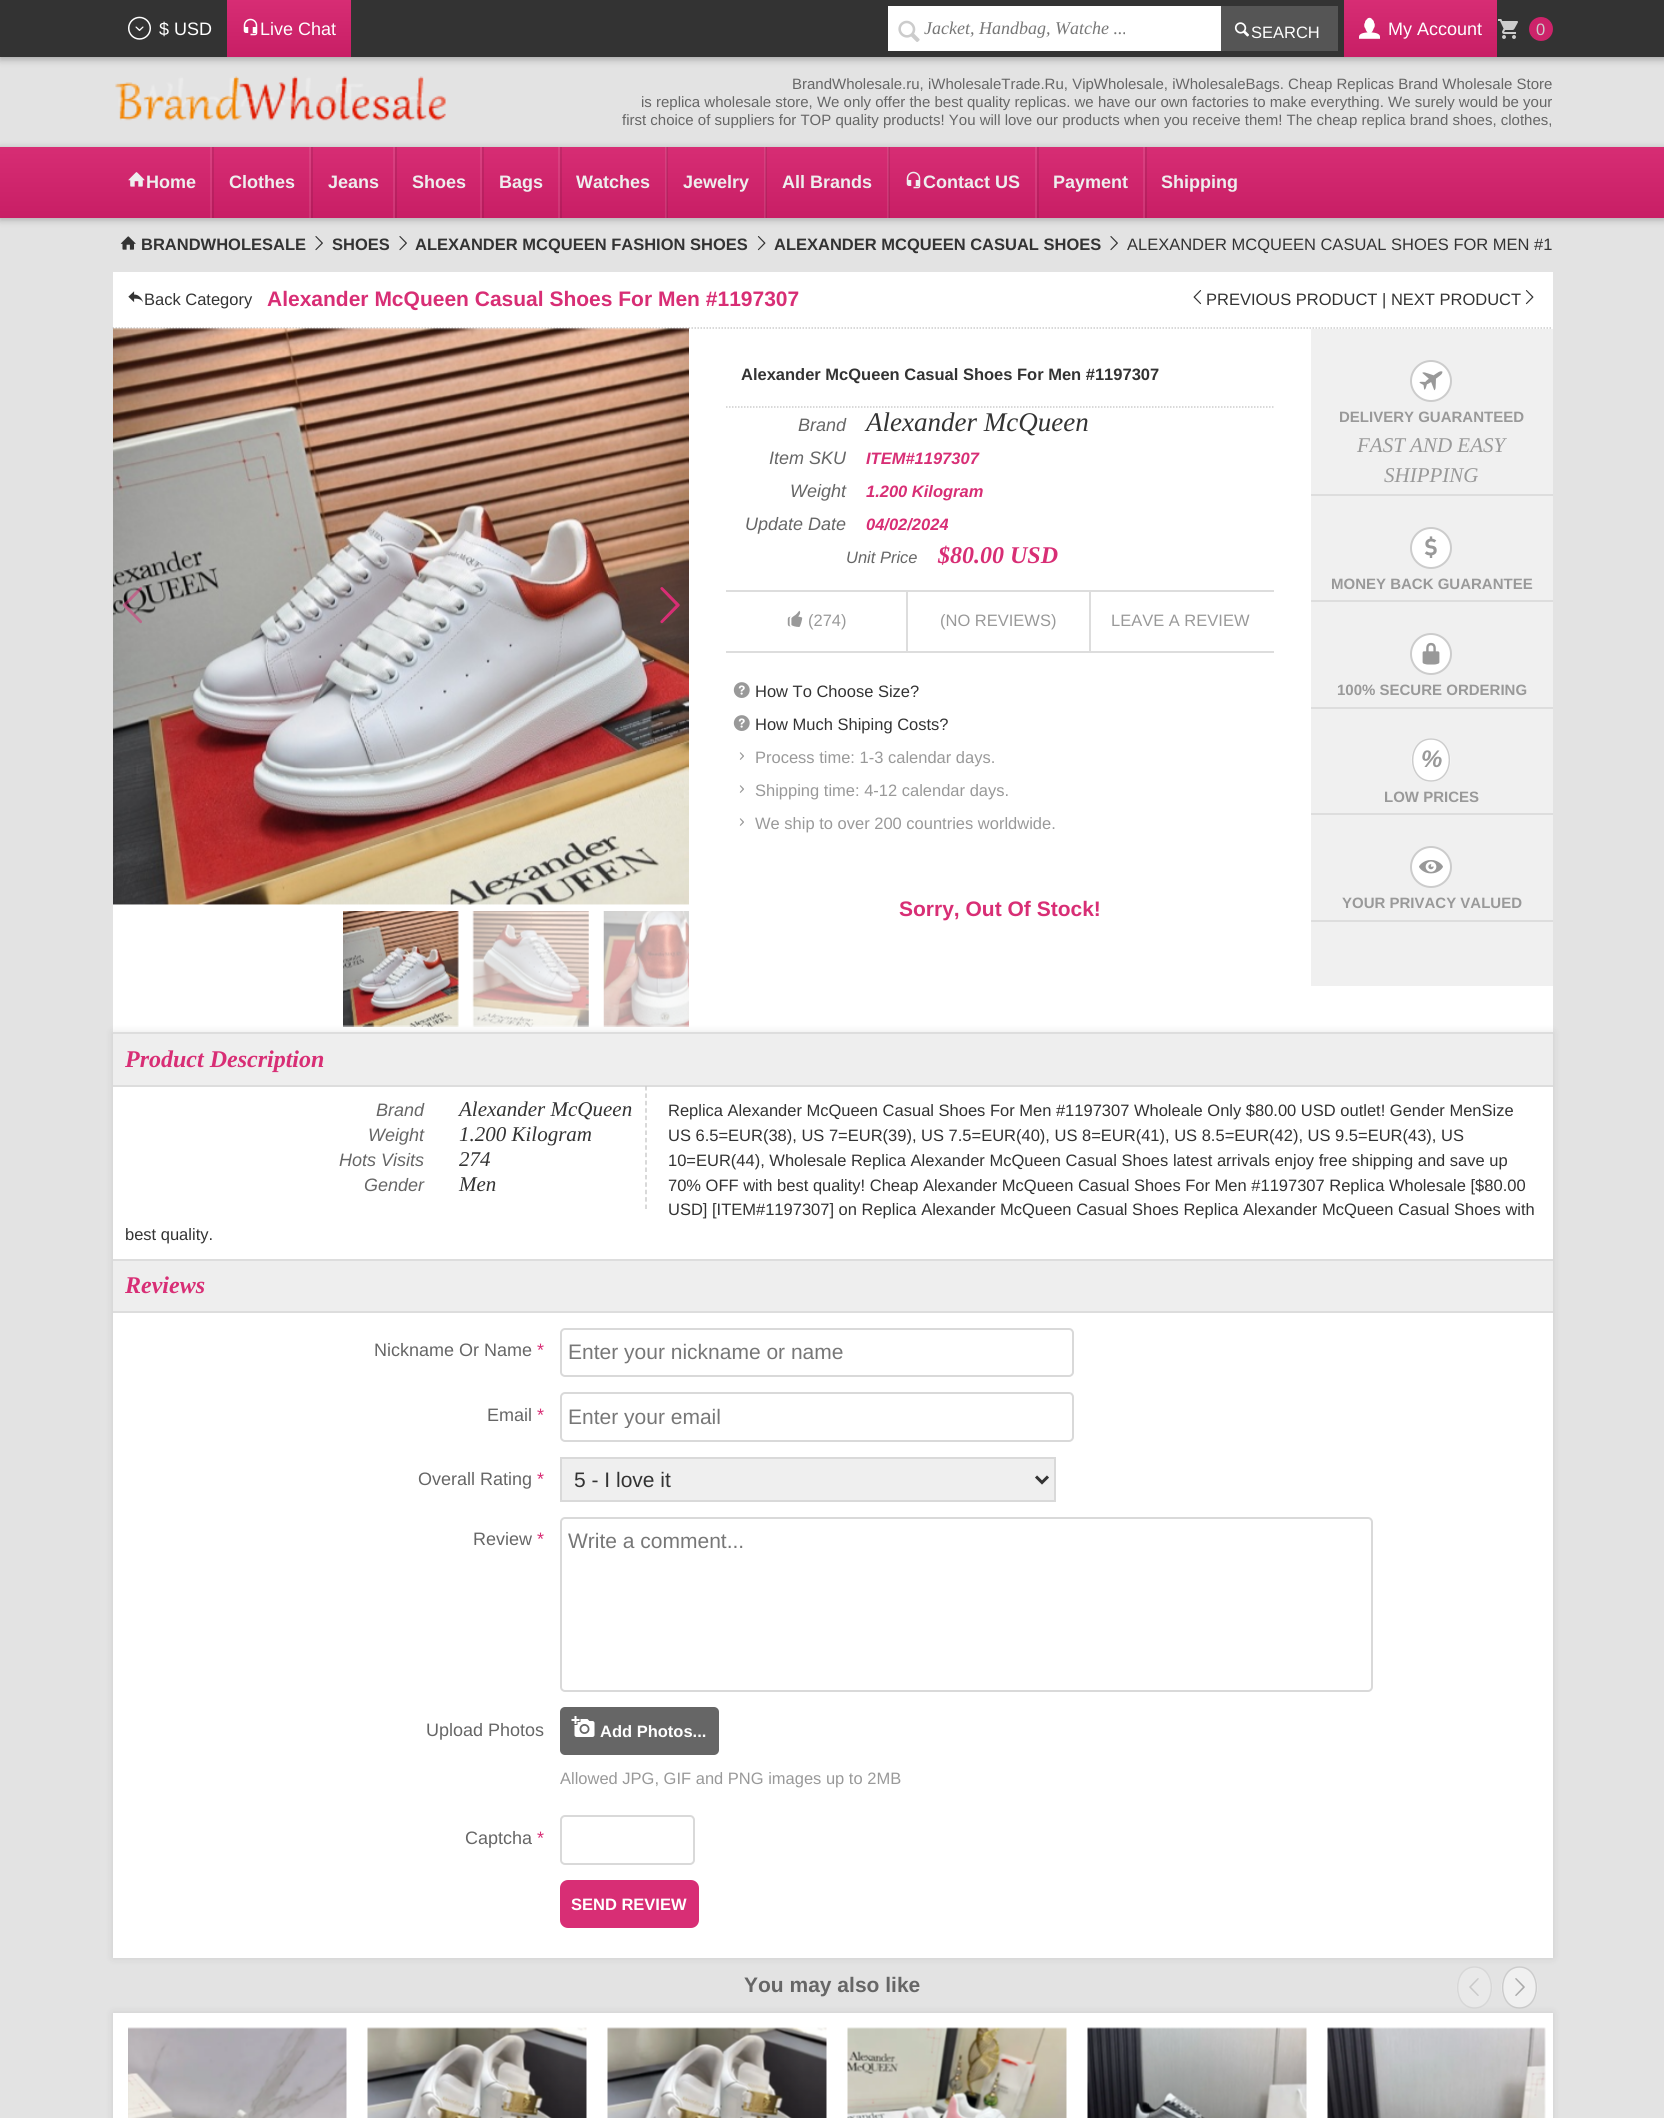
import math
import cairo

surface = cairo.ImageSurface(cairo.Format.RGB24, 1664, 2118)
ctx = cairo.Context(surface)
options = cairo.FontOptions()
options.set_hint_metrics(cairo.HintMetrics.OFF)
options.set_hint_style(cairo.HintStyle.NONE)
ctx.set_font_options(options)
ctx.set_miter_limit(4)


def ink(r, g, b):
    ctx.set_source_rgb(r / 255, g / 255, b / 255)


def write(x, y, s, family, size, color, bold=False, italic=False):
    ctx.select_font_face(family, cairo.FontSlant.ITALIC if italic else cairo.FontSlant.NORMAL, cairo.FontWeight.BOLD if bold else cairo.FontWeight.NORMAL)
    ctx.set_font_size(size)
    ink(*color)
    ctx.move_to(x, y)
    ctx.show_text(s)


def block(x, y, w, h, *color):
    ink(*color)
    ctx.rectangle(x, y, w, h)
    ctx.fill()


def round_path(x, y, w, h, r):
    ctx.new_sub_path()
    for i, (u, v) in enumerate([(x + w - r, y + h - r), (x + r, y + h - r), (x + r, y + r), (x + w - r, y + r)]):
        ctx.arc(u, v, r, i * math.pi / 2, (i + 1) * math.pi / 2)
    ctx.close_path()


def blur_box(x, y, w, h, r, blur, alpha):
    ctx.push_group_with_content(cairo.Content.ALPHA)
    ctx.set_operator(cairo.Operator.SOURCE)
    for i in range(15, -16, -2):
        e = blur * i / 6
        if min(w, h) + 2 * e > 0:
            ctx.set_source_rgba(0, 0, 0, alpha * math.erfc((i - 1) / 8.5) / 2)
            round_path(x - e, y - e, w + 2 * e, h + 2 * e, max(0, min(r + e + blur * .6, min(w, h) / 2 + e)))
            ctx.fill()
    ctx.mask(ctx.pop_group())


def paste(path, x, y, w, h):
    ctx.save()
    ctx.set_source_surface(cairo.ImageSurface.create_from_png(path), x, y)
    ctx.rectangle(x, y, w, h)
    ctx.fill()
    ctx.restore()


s1 = dict(family="Liberation Sans", size=18, color=(255, 255, 255))
s2 = dict(family="Liberation Serif", size=18, color=(119, 119, 119), italic=True)
s3 = dict(family="Liberation Sans", size=16.5, color=(255, 255, 255))
s4 = dict(family="Liberation Sans", size=16.5, color=(204, 204, 204))
s5 = dict(family="Liberation Sans", size=15, color=(102, 102, 102))
s6 = dict(family="Liberation Sans", size=18, color=(238, 238, 238), bold=True)
s7 = dict(family="Liberation Sans", size=16.5, color=(51, 51, 51), bold=True)
s8 = dict(family="Liberation Sans", size=16.5, color=(51, 51, 51))
s9 = dict(family="Liberation Sans", size=21, color=(216, 46, 117), bold=True)
s10 = dict(family="Liberation Sans", size=18, color=(102, 102, 102), italic=True)
s11 = dict(family="Liberation Serif", size=27, color=(51, 51, 51), italic=True)
s12 = dict(family="Liberation Sans", size=16.5, color=(216, 46, 117), bold=True, italic=True)
s13 = dict(family="Liberation Sans", size=16.5, color=(102, 102, 102), italic=True)
s14 = dict(family="Liberation Serif", size=24, color=(216, 46, 117), bold=True, italic=True)
s15 = dict(family="Liberation Sans", size=16.5, color=(153, 153, 153))
s16 = dict(family="Liberation Sans", size=15, color=(153, 153, 153), bold=True)
s17 = dict(family="Liberation Serif", size=21, color=(153, 153, 153), italic=True)
s18 = dict(family="Liberation Sans", size=24, color=(153, 153, 153), bold=True, italic=True)
s19 = dict(family="Liberation Serif", size=21, color=(51, 51, 51), italic=True)
s20 = dict(family="Liberation Sans", size=18, color=(102, 102, 102))
s21 = dict(family="Liberation Sans", size=18, color=(216, 46, 117))
s22 = dict(family="Liberation Sans", size=21, color=(119, 119, 119))
s23 = dict(family="Liberation Sans", size=21, color=(51, 51, 51))
s24 = dict(family="Liberation Sans", size=16.5, color=(255, 255, 255), bold=True)
s25 = dict(family="Liberation Sans", size=21, color=(102, 102, 102), bold=True)

ink(227, 227, 227)
ctx.paint()
ink(0, 0, 0)
blur_box(0, 2, 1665, 57, 0, 4, 0.3)
block(0, 0, 1664, 57, 51, 51, 51)
paste("pic1.png", 128, 16, 23, 24)
write(159, 35, "$ USD", **s1)
gradient = cairo.LinearGradient(227, 0, 227, 57)
gradient.add_color_stop_rgba(0, 0.843, 0.176, 0.455, 1)
gradient.add_color_stop_rgba(1, 0.784, 0.118, 0.396, 1)
ctx.set_source(gradient)
ctx.rectangle(227, 0, 124, 57)
ctx.fill()
paste("pic2.png", 243, 18, 15, 18)
write(260, 35, "Live Chat", **s1)
block(888, 6, 333, 45, 255, 255, 255)
paste("pic3.png", 898, 20, 22, 22)
write(924, 34, "Jacket, Handbag, Watche ...", **s2)
block(1221, 6, 117, 45, 85, 85, 85)
paste("pic4.png", 1234, 22, 15, 15)
write(1251, 38, "SEARCH", **s3)
gradient = cairo.LinearGradient(1344, 0, 1344, 57)
gradient.add_color_stop_rgba(0, 0.843, 0.176, 0.455, 1)
gradient.add_color_stop_rgba(1, 0.784, 0.118, 0.396, 1)
ctx.set_source(gradient)
ctx.rectangle(1344, 0, 153, 57)
ctx.fill()
paste("pic5.png", 1359, 17, 21, 22)
write(1388, 35, "My Account", **s1)
paste("pic6.png", 1498, 19, 20, 20)
ink(205, 35, 106)
ctx.arc(1541, 29, 12, 0, 2 * math.pi)
ctx.fill()
write(1536, 35, "0", **s4)
paste("pic7.png", 115, 76, 331, 45)
write(792, 89, "BrandWholesale.ru, iWholesaleTrade.Ru, VipWholesale, iWholesaleBags. Cheap Replicas Brand Wholesale Store", **s5)
write(641, 107, "is replica wholesale store, We only offer the best quality replicas. we have our own factories to make everything. We surely would be your", **s5)
write(622, 125, "first choice of suppliers for TOP quality products! You will love our products when you receive them! The cheap replica brand shoes, clothes,", **s5)
ink(0, 0, 0)
blur_box(0, 149, 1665, 70, 0, 4, 0.3)
gradient = cairo.LinearGradient(0, 147, 0, 218)
gradient.add_color_stop_rgba(0, 0.843, 0.176, 0.455, 1)
gradient.add_color_stop_rgba(1, 0.784, 0.118, 0.396, 1)
ctx.set_source(gradient)
ctx.rectangle(0, 147, 1664, 71)
ctx.fill()
ctx.set_source_rgba(1, 1, 1, 0.1)
ctx.rectangle(210, 147, 2, 71)
ctx.fill()
paste("pic8.png", 128, 172, 17, 15)
write(146, 188, "Home", **s6)
ctx.set_source_rgba(1, 1, 1, 0.1)
ctx.rectangle(309, 147, 2, 71)
ctx.fill()
ctx.set_source_rgba(0, 0, 0, 0.1)
ctx.rectangle(212, 147, 2, 71)
ctx.fill()
write(229, 188, "Clothes", **s6)
ctx.set_source_rgba(1, 1, 1, 0.1)
ctx.rectangle(393, 147, 2, 71)
ctx.fill()
ctx.set_source_rgba(0, 0, 0, 0.1)
ctx.rectangle(311, 147, 2, 71)
ctx.fill()
write(328, 188, "Jeans", **s6)
ctx.set_source_rgba(1, 1, 1, 0.1)
ctx.rectangle(480, 147, 2, 71)
ctx.fill()
ctx.set_source_rgba(0, 0, 0, 0.1)
ctx.rectangle(395, 147, 2, 71)
ctx.fill()
write(412, 188, "Shoes", **s6)
ctx.set_source_rgba(1, 1, 1, 0.1)
ctx.rectangle(558, 147, 2, 71)
ctx.fill()
ctx.set_source_rgba(0, 0, 0, 0.1)
ctx.rectangle(482, 147, 2, 71)
ctx.fill()
write(499, 188, "Bags", **s6)
ctx.set_source_rgba(1, 1, 1, 0.1)
ctx.rectangle(665, 147, 2, 71)
ctx.fill()
ctx.set_source_rgba(0, 0, 0, 0.1)
ctx.rectangle(560, 147, 2, 71)
ctx.fill()
write(576, 188, "Watches", **s6)
ctx.set_source_rgba(1, 1, 1, 0.1)
ctx.rectangle(764, 147, 2, 71)
ctx.fill()
ctx.set_source_rgba(0, 0, 0, 0.1)
ctx.rectangle(666, 147, 2, 71)
ctx.fill()
write(683, 188, "Jewelry", **s6)
ctx.set_source_rgba(1, 1, 1, 0.1)
ctx.rectangle(887, 147, 2, 71)
ctx.fill()
ctx.set_source_rgba(0, 0, 0, 0.1)
ctx.rectangle(765, 147, 2, 71)
ctx.fill()
write(782, 188, "All Brands", **s6)
ctx.set_source_rgba(1, 1, 1, 0.1)
ctx.rectangle(1035, 147, 2, 71)
ctx.fill()
ctx.set_source_rgba(0, 0, 0, 0.1)
ctx.rectangle(888, 147, 2, 71)
ctx.fill()
paste("pic9.png", 906, 171, 15, 18)
write(923, 188, "Contact US", **s6)
ctx.set_source_rgba(1, 1, 1, 0.1)
ctx.rectangle(1143, 147, 2, 71)
ctx.fill()
ctx.set_source_rgba(0, 0, 0, 0.1)
ctx.rectangle(1037, 147, 2, 71)
ctx.fill()
write(1053, 188, "Payment", **s6)
ctx.set_source_rgba(0, 0, 0, 0.1)
ctx.rectangle(1145, 147, 2, 71)
ctx.fill()
write(1161, 188, "Shipping", **s6)
paste("pic10.png", 120, 236, 16, 14)
write(141, 250, "BRANDWHOLESALE", **s7)
paste("pic11.png", 315, 236, 8, 15)
write(332, 250, "SHOES", **s7)
paste("pic11.png", 399, 236, 8, 15)
write(415, 250, "ALEXANDER MCQUEEN FASHION SHOES", **s7)
paste("pic12.png", 757, 236, 9, 15)
write(774, 250, "ALEXANDER MCQUEEN CASUAL SHOES", **s7)
paste("pic11.png", 1110, 236, 8, 15)
write(1127, 250, "ALEXANDER MCQUEEN CASUAL SHOES FOR MEN #1", **s8)
block(113, 272, 1440, 760, 255, 255, 255)
ctx.new_path()
ctx.move_to(112.5, 328)
ctx.line_to(1552.5, 328)
ink(204, 204, 204)
ctx.set_line_width(1.5)
ctx.set_dash([1.5, 1.5])
ctx.stroke()
paste("pic13.png", 128, 291, 16, 12)
write(144, 305, "Back Category", **s8)
write(267, 306, "Alexander McQueen Casual Shoes For Men #1197307", **s9)
paste("pic14.png", 1193, 290, 9, 15)
write(1206, 305, "PREVIOUS PRODUCT | NEXT PRODUCT", **s8)
paste("pic15.png", 1525, 290, 9, 15)
paste("pic16.png", 113, 328, 576, 577)
paste("pic17.png", 122, 587, 20, 37)
paste("pic18.png", 660, 587, 20, 37)
ink(0, 0, 0)
blur_box(113, 1032, 1440, 926, 0, 4, 0.1)
paste("pic19.png", 343, 911, 116, 116)
paste("pic20.png", 472, 911, 117, 116)
paste("pic21.png", 603, 911, 86, 116)
block(1311, 329, 242, 657, 240, 240, 240)
ctx.new_path()
ctx.move_to(726, 407)
ctx.line_to(1273.5, 407)
ink(204, 204, 204)
ctx.stroke()
write(741, 380, "Alexander McQueen Casual Shoes For Men #1197307", **s7)
write(798, 431, "Brand", **s10)
write(866, 431, "Alexander McQueen", **s11)
write(769, 464, "Item SKU", **s10)
write(866, 464, "ITEM#1197307", **s12)
write(790, 497, "Weight", **s10)
write(866, 497, "1.200 Kilogram", **s12)
write(745, 530, "Update Date", **s10)
write(866, 530, "04/02/2024", **s12)
write(846, 563, "Unit Price", **s13)
write(938, 563, "$80.00 USD", **s14)
block(726, 590, 548, 2, 221, 221, 221)
block(726, 651, 548, 2, 221, 221, 221)
block(906, 591, 2, 60, 221, 221, 221)
paste("pic22.png", 787, 610, 16, 17)
write(808, 626, "(274)", **s15)
block(1089, 591, 2, 60, 221, 221, 221)
write(940, 626, "(NO REVIEWS)", **s15)
write(1111, 626, "LEAVE A REVIEW", **s15)
paste("pic23.png", 733, 682, 17, 16)
write(755, 697, "How To Choose Size?", **s8)
paste("pic23.png", 733, 715, 17, 16)
write(755, 730, "How Much Shiping Costs?", **s8)
paste("pic24.png", 739, 752, 5, 8)
write(755, 763, "Process time: 1-3 calendar days.", **s15)
paste("pic24.png", 739, 785, 5, 8)
write(755, 796, "Shipping time: 4-12 calendar days.", **s15)
paste("pic24.png", 739, 818, 5, 8)
write(755, 829, "We ship to over 200 countries worldwide.", **s15)
write(899, 916, "Sorry, Out Of Stock!", **s9)
block(1311, 494, 242, 2, 221, 221, 221)
ink(255, 255, 255)
ctx.new_path()
ctx.arc(1431, 381, 20, 0, 2 * math.pi)
ctx.fill_preserve()
ink(204, 204, 204)
ctx.set_line_width(2)
ctx.set_dash([])
ctx.stroke()
paste("pic25.png", 1419, 371, 24, 20)
write(1339, 422, "DELIVERY GUARANTEED", **s16)
write(1357, 452, "FAST AND EASY", **s17)
write(1384, 482, "SHIPPING", **s17)
block(1311, 600, 242, 2, 221, 221, 221)
ink(255, 255, 255)
ctx.new_path()
ctx.arc(1431, 548, 20, 0, 2 * math.pi)
ctx.fill_preserve()
ink(204, 204, 204)
ctx.stroke()
paste("pic26.png", 1424, 536, 13, 22)
write(1331, 589, "MONEY BACK GUARANTEE", **s16)
block(1311, 707, 242, 2, 221, 221, 221)
ink(255, 255, 255)
ctx.new_path()
ctx.arc(1431, 654, 20, 0, 2 * math.pi)
ctx.fill_preserve()
ink(204, 204, 204)
ctx.stroke()
paste("pic27.png", 1422, 642, 18, 23)
write(1337, 695, "100% SECURE ORDERING", **s16)
block(1311, 813, 242, 2, 221, 221, 221)
ink(255, 255, 255)
ctx.new_path()
ctx.move_to(1431, 738)
ctx.curve_to(1442, 738, 1450.5, 748, 1450.5, 760)
ctx.curve_to(1450.5, 772, 1442, 782, 1431, 782)
ctx.curve_to(1420, 782, 1411.5, 772, 1411.5, 760)
ctx.curve_to(1411.5, 748, 1420, 738, 1431, 738)
ctx.close_path()
ctx.fill()
ctx.new_path()
ctx.move_to(1431, 739)
ctx.curve_to(1455.5, 739, 1455.5, 781, 1431, 781)
ctx.curve_to(1406.5, 781, 1406.5, 739, 1431, 739)
ctx.close_path()
ink(204, 204, 204)
ctx.set_line_width(1.5)
ctx.stroke()
write(1421, 767, "%", **s18)
write(1384, 802, "LOW PRICES", **s16)
block(1311, 920, 242, 2, 221, 221, 221)
ink(255, 255, 255)
ctx.new_path()
ctx.arc(1431, 867, 20, 0, 2 * math.pi)
ctx.fill_preserve()
ink(204, 204, 204)
ctx.set_line_width(2)
ctx.stroke()
paste("pic28.png", 1419, 860, 24, 14)
write(1342, 908, "YOUR PRIVACY VALUED", **s16)
block(113, 1087, 1440, 871, 255, 255, 255)
block(113, 1034, 1440, 51, 238, 238, 238)
block(113, 1032, 1440, 2, 221, 221, 221)
block(113, 1085, 1440, 2, 221, 221, 221)
write(125, 1067, "Product Description", **s14)
ctx.new_path()
ctx.move_to(646, 1086)
ctx.line_to(646, 1209)
ink(204, 204, 204)
ctx.set_line_width(1.5)
ctx.set_dash([4.5, 2.91])
ctx.stroke()
write(376, 1116, "Brand", **s10)
write(459, 1116, "Alexander McQueen", **s19)
write(368, 1141, "Weight", **s10)
write(459, 1141, "1.200 Kilogram", **s19)
write(339, 1166, "Hots Visits", **s10)
write(459, 1166, "274", **s19)
write(364, 1191, "Gender", **s10)
write(459, 1191, "Men", **s19)
write(668, 1116, "Replica Alexander McQueen Casual Shoes For Men #1197307 Wholeale Only $80.00 USD outlet! Gender MenSize", **s8)
write(668, 1141, "US 6.5=EUR(38), US 7=EUR(39), US 7.5=EUR(40), US 8=EUR(41), US 8.5=EUR(42), US 9.5=EUR(43), US", **s8)
write(668, 1166, "10=EUR(44), Wholesale Replica Alexander McQueen Casual Shoes latest arrivals enjoy free shipping and save up", **s8)
write(668, 1191, "70% OFF with best quality! Cheap Alexander McQueen Casual Shoes For Men #1197307 Replica Wholesale [$80.00", **s8)
write(668, 1215, "USD] [ITEM#1197307] on Replica Alexander McQueen Casual Shoes Replica Alexander McQueen Casual Shoes with", **s8)
write(125, 1240, "best quality.", **s8)
block(113, 1261, 1440, 50, 238, 238, 238)
block(113, 1259, 1440, 2, 221, 221, 221)
block(113, 1311, 1440, 2, 221, 221, 221)
write(125, 1293, "Reviews", **s14)
write(374, 1356, "Nickname Or Name", **s20)
write(537, 1356, "*", **s21)
round_path(561, 1329, 512, 47, 4)
ink(217, 217, 217)
ctx.set_line_width(2)
ctx.set_dash([])
ctx.stroke()
write(568, 1359, "Enter your nickname or name", **s22)
write(487, 1421, "Email", **s20)
write(537, 1421, "*", **s21)
round_path(561, 1393, 512, 48, 4)
ink(217, 217, 217)
ctx.stroke()
ctx.save()
ctx.rectangle(569, 1404, 496, 24)
ctx.clip()
write(568, 1424, "Enter your email", **s22)
ctx.restore()
write(418, 1485, "Overall Rating", **s20)
write(537, 1485, "*", **s21)
ink(239, 239, 239)
ctx.rectangle(561, 1458, 494, 43)
ctx.fill_preserve()
ink(217, 217, 217)
ctx.stroke()
ctx.new_path()
ctx.move_to(1036, 1476.5)
ctx.line_to(1042, 1482.5)
ctx.line_to(1048, 1476.5)
ink(51, 51, 51)
ctx.set_line_width(3)
ctx.stroke()
write(574, 1487, "5 - I love it", **s23)
write(473, 1545, "Review", **s20)
write(537, 1545, "*", **s21)
round_path(561, 1518, 811, 173, 4)
ink(217, 217, 217)
ctx.set_line_width(2)
ctx.stroke()
write(568, 1548, "Write a comment...", **s22)
write(426, 1736, "Upload Photos", **s20)
round_path(560, 1707, 159, 48, 5)
ctx.fill()
paste("pic29.png", 571, 1716, 24, 21)
write(600, 1737, "Add Photos...", **s24)
write(560, 1784, "Allowed JPG, GIF and PNG images up to 2MB", **s15)
write(465, 1844, "Captcha", **s20)
write(537, 1844, "*", **s21)
round_path(561, 1816, 133, 48, 4)
ink(217, 217, 217)
ctx.stroke()
ink(216, 46, 117)
round_path(560, 1880, 139, 48, 8)
ctx.fill()
write(571, 1910, "SEND REVIEW", **s24)
write(744, 1992, "You may also like", **s25)
ink(233, 233, 233)
ctx.new_path()
ctx.move_to(1474.5, 1966.5)
ctx.curve_to(1484.5, 1966.5, 1492.5, 1976, 1492.5, 1987.5)
ctx.curve_to(1492.5, 1999, 1484.5, 2008.5, 1474.5, 2008.5)
ctx.curve_to(1464.5, 2008.5, 1456.5, 1999, 1456.5, 1987.5)
ctx.curve_to(1456.5, 1976, 1464.5, 1966.5, 1474.5, 1966.5)
ctx.close_path()
ctx.fill()
ctx.new_path()
ctx.move_to(1474.5, 1967)
ctx.curve_to(1497, 1967, 1497, 2008, 1474.5, 2008)
ctx.curve_to(1452, 2008, 1452, 1967, 1474.5, 1967)
ctx.close_path()
ink(215, 215, 215)
ctx.set_line_width(1.5)
ctx.stroke()
paste("pic30.png", 1469, 1978, 10, 18)
ink(240, 240, 240)
ctx.new_path()
ctx.move_to(1519.5, 1966.5)
ctx.curve_to(1529.5, 1966.5, 1537.5, 1976, 1537.5, 1987.5)
ctx.curve_to(1537.5, 1999, 1529.5, 2008.5, 1519.5, 2008.5)
ctx.curve_to(1509.5, 2008.5, 1501.5, 1999, 1501.5, 1987.5)
ctx.curve_to(1501.5, 1976, 1509.5, 1966.5, 1519.5, 1966.5)
ctx.close_path()
ctx.fill()
ctx.new_path()
ctx.move_to(1519.5, 1967)
ctx.curve_to(1542, 1967, 1542, 2008, 1519.5, 2008)
ctx.curve_to(1497, 2008, 1497, 1967, 1519.5, 1967)
ctx.close_path()
ink(204, 204, 204)
ctx.stroke()
paste("pic31.png", 1515, 1978, 10, 18)
ink(0, 0, 0)
blur_box(113, 2013, 1440, 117, 0, 4, 0.1)
block(113, 2013, 1440, 105, 255, 255, 255)
paste("pic32.png", 128, 2027, 219, 91)
paste("pic33.png", 367, 2027, 220, 91)
paste("pic34.png", 607, 2027, 220, 91)
paste("pic35.png", 847, 2027, 220, 91)
paste("pic36.png", 1087, 2027, 220, 91)
paste("pic37.png", 1327, 2027, 219, 91)
surface.write_to_png("screenshot.png")
